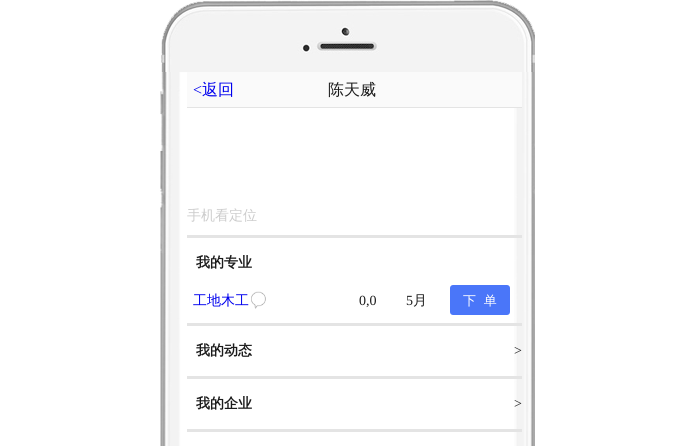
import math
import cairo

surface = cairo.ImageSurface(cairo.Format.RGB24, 694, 446)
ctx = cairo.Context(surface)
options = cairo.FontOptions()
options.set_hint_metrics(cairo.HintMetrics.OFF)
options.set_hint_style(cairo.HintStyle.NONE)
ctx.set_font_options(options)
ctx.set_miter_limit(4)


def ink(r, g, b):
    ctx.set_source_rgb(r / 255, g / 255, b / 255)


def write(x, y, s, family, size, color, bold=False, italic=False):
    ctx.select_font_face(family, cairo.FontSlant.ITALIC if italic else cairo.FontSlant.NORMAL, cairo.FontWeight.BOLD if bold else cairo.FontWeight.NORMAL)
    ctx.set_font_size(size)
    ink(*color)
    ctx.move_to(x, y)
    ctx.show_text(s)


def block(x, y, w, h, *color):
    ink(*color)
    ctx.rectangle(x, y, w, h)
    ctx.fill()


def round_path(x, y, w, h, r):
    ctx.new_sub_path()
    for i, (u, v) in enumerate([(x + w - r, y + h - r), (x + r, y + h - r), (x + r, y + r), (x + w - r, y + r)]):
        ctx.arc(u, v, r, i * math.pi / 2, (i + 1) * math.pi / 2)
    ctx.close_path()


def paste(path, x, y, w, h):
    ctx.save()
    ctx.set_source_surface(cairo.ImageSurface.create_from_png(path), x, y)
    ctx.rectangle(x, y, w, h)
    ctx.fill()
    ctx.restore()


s1 = dict(family="Liberation Serif", size=16, color=(0, 0, 238))
s2 = dict(family="WenQuanYi Zen Hei Medium", size=16, color=(0, 0, 238))
s3 = dict(family="WenQuanYi Zen Hei Medium", size=16, color=(28, 28, 28))
s4 = dict(family="WenQuanYi Zen Hei Medium", size=14, color=(204, 204, 204))
s5 = dict(family="WenQuanYi Zen Hei", size=14, color=(28, 28, 28), bold=True)
s6 = dict(family="WenQuanYi Zen Hei Medium", size=14, color=(0, 0, 238))
s7 = dict(family="Liberation Serif", size=14, color=(28, 28, 28))
s8 = dict(family="WenQuanYi Zen Hei Medium", size=14, color=(28, 28, 28))
s9 = dict(family="WenQuanYi Zen Hei Medium", size=13, color=(255, 255, 255))

ink(255, 255, 255)
ctx.paint()
paste("pic1.png", 161, 0, 374, 72)
paste("pic2.png", 160, 72, 375, 374)
block(187, 72, 335, 35, 250, 250, 250)
block(187, 107, 335, 1, 228, 228, 228)
write(193, 95, "<", **s1)
write(202, 95, "返回", **s2)
write(328, 95, "陈天威", **s3)
block(187, 235, 335, 3, 228, 228, 228)
write(187, 220, "手机看定位", **s4)
block(187, 323, 335, 3, 228, 228, 228)
write(196, 267, "我的专业", **s5)
write(193, 305, "工地木工", **s6)
paste("pic3.png", 251, 291, 15, 18)
write(359, 305, "0,0", **s7)
write(406, 305, "5", **s7)
write(413, 305, "月", **s8)
ink(74, 118, 249)
round_path(450, 285, 60, 30, 3)
ctx.fill()
write(463, 305, "下  单", **s9)
block(187, 376, 335, 3, 228, 228, 228)
write(196, 355, "我的动态", **s5)
write(514, 355, ">", **s7)
block(187, 429, 335, 3, 228, 228, 228)
write(196, 408, "我的企业", **s5)
write(514, 408, ">", **s7)
surface.write_to_png("screenshot.png")
